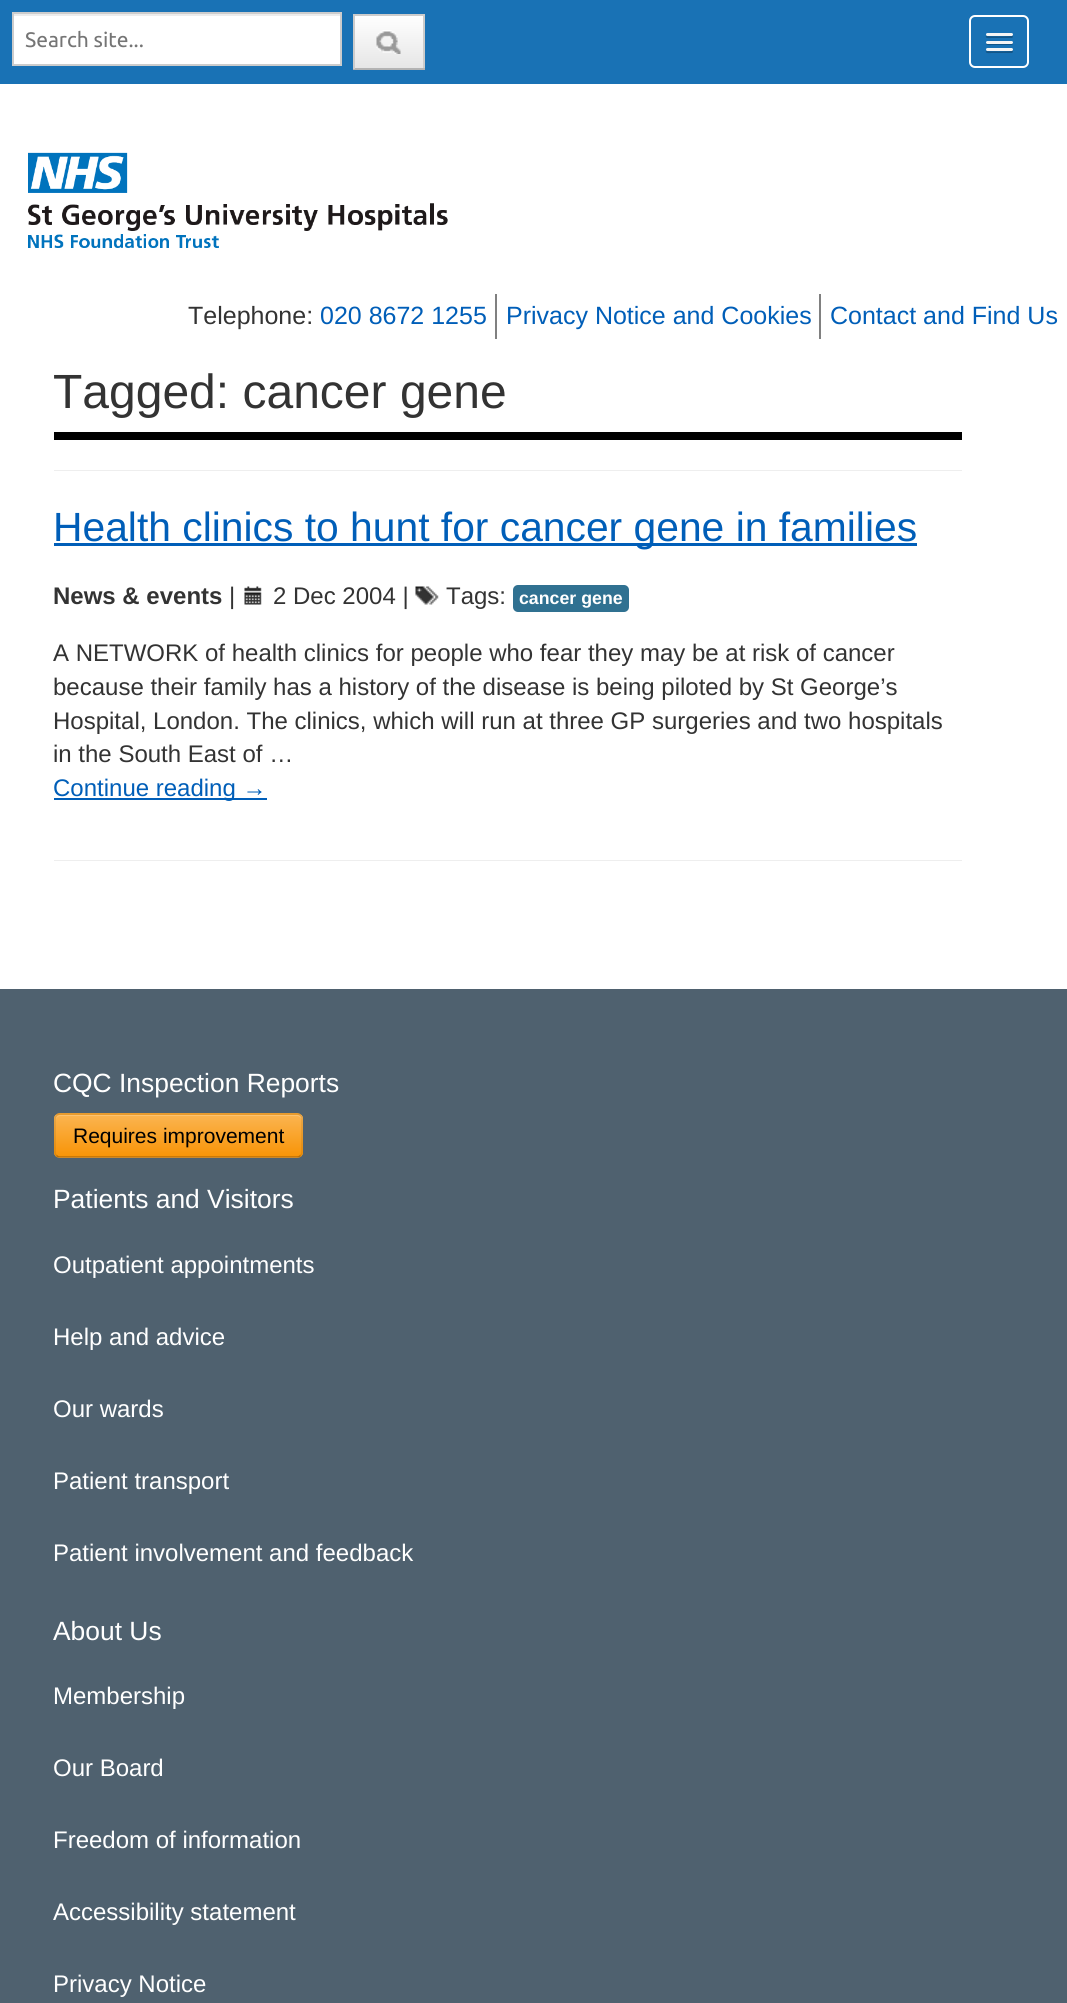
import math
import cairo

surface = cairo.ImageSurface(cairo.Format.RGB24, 1067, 2003)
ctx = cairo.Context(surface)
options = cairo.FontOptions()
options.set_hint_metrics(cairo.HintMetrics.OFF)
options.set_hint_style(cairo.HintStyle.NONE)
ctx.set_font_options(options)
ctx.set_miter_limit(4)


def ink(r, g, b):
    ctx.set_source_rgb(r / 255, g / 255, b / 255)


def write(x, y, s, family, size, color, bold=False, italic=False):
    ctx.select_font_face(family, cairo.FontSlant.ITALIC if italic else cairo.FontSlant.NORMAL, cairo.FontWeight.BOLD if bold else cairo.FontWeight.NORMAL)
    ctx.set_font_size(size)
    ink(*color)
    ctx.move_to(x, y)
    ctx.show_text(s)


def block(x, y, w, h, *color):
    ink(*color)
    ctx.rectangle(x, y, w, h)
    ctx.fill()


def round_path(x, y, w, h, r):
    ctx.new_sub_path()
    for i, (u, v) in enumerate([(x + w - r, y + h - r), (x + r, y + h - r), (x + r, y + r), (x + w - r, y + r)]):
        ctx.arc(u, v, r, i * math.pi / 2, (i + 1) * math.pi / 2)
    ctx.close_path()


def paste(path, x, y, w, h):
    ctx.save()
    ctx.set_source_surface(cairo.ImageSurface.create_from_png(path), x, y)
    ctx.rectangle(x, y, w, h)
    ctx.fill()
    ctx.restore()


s1 = dict(family="Ubuntu", size=21, color=(117, 117, 117))
s2 = dict(family="Liberation Sans", size=25, color=(51, 51, 51))
s3 = dict(family="Liberation Sans", size=25, color=(0, 94, 184))
s4 = dict(family="Liberation Sans", size=48, color=(51, 51, 51))
s5 = dict(family="Liberation Sans", size=40.8, color=(0, 94, 184))
s6 = dict(family="Liberation Sans", size=24, color=(51, 51, 51), bold=True)
s7 = dict(family="Liberation Sans", size=24, color=(51, 51, 51))
s8 = dict(family="Liberation Sans", size=17.75, color=(255, 255, 255), bold=True)
s9 = dict(family="Liberation Sans", size=24, color=(0, 94, 184))
s10 = dict(family="Liberation Sans", size=26.4, color=(255, 255, 255))
s11 = dict(family="Liberation Sans", size=21, color=(0, 0, 0))
s12 = dict(family="Liberation Sans", size=24, color=(255, 255, 255))

ink(255, 255, 255)
ctx.paint()
block(0, 0, 1067, 84, 25, 114, 181)
block(14, 16, 326, 48, 255, 255, 255)
block(14, 14, 327, 2, 236, 236, 236)
ctx.rectangle(13, 13, 328, 52)
ink(204, 204, 204)
ctx.stroke()
write(25, 47, "Search site...", **s1)
gradient = cairo.LinearGradient(389, 15, 389, 68)
gradient.add_color_stop_rgba(0, 1, 1, 1, 1)
gradient.add_color_stop_rgba(1, 0.902, 0.902, 0.902, 1)
ctx.set_source(gradient)
ctx.rectangle(355, 16, 68, 52)
ctx.fill()
block(353, 14, 72, 2, 204, 204, 204)
block(423, 14, 2, 55, 204, 204, 204)
block(353, 68, 72, 2, 179, 179, 179)
block(353, 14, 2, 55, 204, 204, 204)
paste("pic1.png", 376, 30, 25, 24)
round_path(970, 16, 58, 51, 5)
ink(255, 255, 255)
ctx.stroke()
ink(19, 86, 136)
ctx.new_path()
ctx.move_to(986, 36)
ctx.curve_to(984.5, 39, 991.5, 38, 991.5, 38)
ctx.line_to(1012, 38)
ctx.curve_to(1013, 37.5, 1013.5, 36, 1012.5, 35)
ctx.line_to(1011, 36)
ctx.curve_to(1009, 36.5, 987, 36.5, 986, 36)
ctx.close_path()
ctx.fill()
ink(245, 245, 245)
round_path(986, 33, 27, 3, 1.5)
ctx.fill()
ink(19, 86, 136)
ctx.new_path()
ctx.move_to(986, 43)
ctx.curve_to(985.5, 46, 991, 45, 991.5, 45)
ctx.line_to(1011.5, 45)
ctx.curve_to(1013, 45, 1013.5, 43, 1012.5, 42.5)
ctx.line_to(1011.5, 43.5)
ctx.curve_to(1010, 44, 986.5, 43.5, 986, 43)
ctx.close_path()
ctx.fill()
ink(245, 245, 245)
round_path(986, 41, 27, 3, 1.5)
ctx.fill()
ink(19, 86, 136)
ctx.new_path()
ctx.move_to(986, 51)
ctx.curve_to(984.5, 54, 991.5, 53, 991.5, 53)
ctx.line_to(1012, 53)
ctx.curve_to(1013, 52.5, 1013.5, 51, 1012.5, 50)
ctx.line_to(1011, 51)
ctx.curve_to(1009, 51.5, 987, 51.5, 986, 51)
ctx.close_path()
ctx.fill()
ink(245, 245, 245)
round_path(986, 48, 27, 3, 1.5)
ctx.fill()
paste("pic2.png", 28, 152, 420, 96)
block(495, 294, 2, 45, 128, 128, 128)
write(188, 324, "Telephone:", **s2)
write(320, 324, "020 8672 1255", **s3)
block(819, 294, 2, 45, 128, 128, 128)
write(506, 324, "Privacy Notice and Cookies", **s3)
write(830, 324, "Contact and Find Us", **s3)
block(54, 432, 908, 8, 0, 0, 0)
write(53, 408, "Tagged: cancer gene", **s4)
block(54, 470, 908, 1, 238, 238, 238)
block(54, 543, 863, 3, 0, 94, 184)
write(53, 541, "Health clinics to hunt for cancer gene in families", **s5)
write(53, 604, "News & events", **s6)
write(229, 604, "|", **s7)
paste("pic3.png", 244, 586, 18, 19)
write(273, 604, "2 Dec 2004 |", **s7)
paste("pic4.png", 415, 586, 24, 19)
write(446, 604, "Tags:", **s7)
ink(48, 113, 145)
round_path(513, 585, 116, 27, 5)
ctx.fill()
write(519, 604, "cancer gene", **s8)
write(53, 661, "A NETWORK of health clinics for people who fear they may be at risk of cancer", **s7)
write(53, 695, "because their family has a history of the disease is being piloted by St George’s", **s7)
write(53, 729, "Hospital, London. The clinics, which will run at three GP surgeries and two hospitals", **s7)
write(53, 762, "in the South East of …", **s7)
block(54, 798, 213, 2, 0, 94, 184)
write(53, 796, "Continue reading →", **s9)
block(54, 860, 908, 1, 238, 238, 238)
block(0, 989, 1067, 1014, 79, 97, 111)
write(53, 1092, "CQC Inspection Reports", **s10)
ink(250, 167, 50)
round_path(54, 1113, 249, 45, 6)
ctx.fill()
ctx.save()
round_path(54, 1113, 249, 45, 6)
ctx.clip()
gradient = cairo.LinearGradient(179, 1115, 179, 1157)
gradient.add_color_stop_rgba(0, 0.984, 0.706, 0.314, 1)
gradient.add_color_stop_rgba(1, 0.973, 0.58, 0.024, 1)
ctx.set_source(gradient)
ctx.rectangle(54, 1115, 249, 42)
ctx.fill()
ctx.restore()
ink(252, 195, 114)
ctx.new_path()
ctx.move_to(60, 1116)
ctx.line_to(297, 1116)
ctx.curve_to(299, 1116, 302, 1118, 302, 1120)
ctx.curve_to(302, 1117, 300, 1115, 297, 1115)
ctx.line_to(61, 1115)
ctx.curve_to(58, 1115, 56, 1117, 56, 1120)
ctx.curve_to(56, 1118, 58, 1116, 60, 1116)
ctx.close_path()
ctx.fill()
ctx.new_path()
ctx.move_to(300.5, 1155.5)
ctx.curve_to(299.5, 1156.5, 298.5, 1157, 297, 1157)
ctx.line_to(60, 1157)
ctx.curve_to(58.5, 1157, 57.5, 1156.5, 56.5, 1155.5)
ctx.set_source_rgba(0, 0, 0, 0.25)
ctx.set_line_width(1.5)
ctx.stroke()
ctx.new_path()
ctx.move_to(56.5, 1155.5)
ctx.curve_to(55.5, 1154.5, 55, 1153.5, 55, 1152)
ctx.line_to(55, 1119)
ctx.curve_to(55, 1117.5, 55.5, 1116.5, 56.5, 1115.5)
ctx.curve_to(57.5, 1114.5, 58.5, 1114, 60, 1114)
ctx.line_to(297, 1114)
ctx.curve_to(298.5, 1114, 299.5, 1114.5, 300.5, 1115.5)
ctx.curve_to(301.5, 1116.5, 302, 1117.5, 302, 1119)
ctx.line_to(302, 1152)
ctx.curve_to(302, 1153.5, 301.5, 1154.5, 300.5, 1155.5)
ctx.set_source_rgba(0, 0, 0, 0.1)
ctx.stroke()
write(73, 1143, "Requires improvement", **s11)
write(53, 1208, "Patients and Visitors", **s10)
write(53, 1273, "Outpatient appointments", **s12)
write(53, 1345, "Help and advice", **s12)
write(53, 1417, "Our wards", **s12)
write(53, 1489, "Patient transport", **s12)
write(53, 1561, "Patient involvement and feedback", **s12)
write(53, 1640, "About Us", **s10)
write(53, 1704, "Membership", **s12)
write(53, 1776, "Our Board", **s12)
write(53, 1848, "Freedom of information", **s12)
write(53, 1920, "Accessibility statement", **s12)
write(53, 1992, "Privacy Notice", **s12)
surface.write_to_png("screenshot.png")
